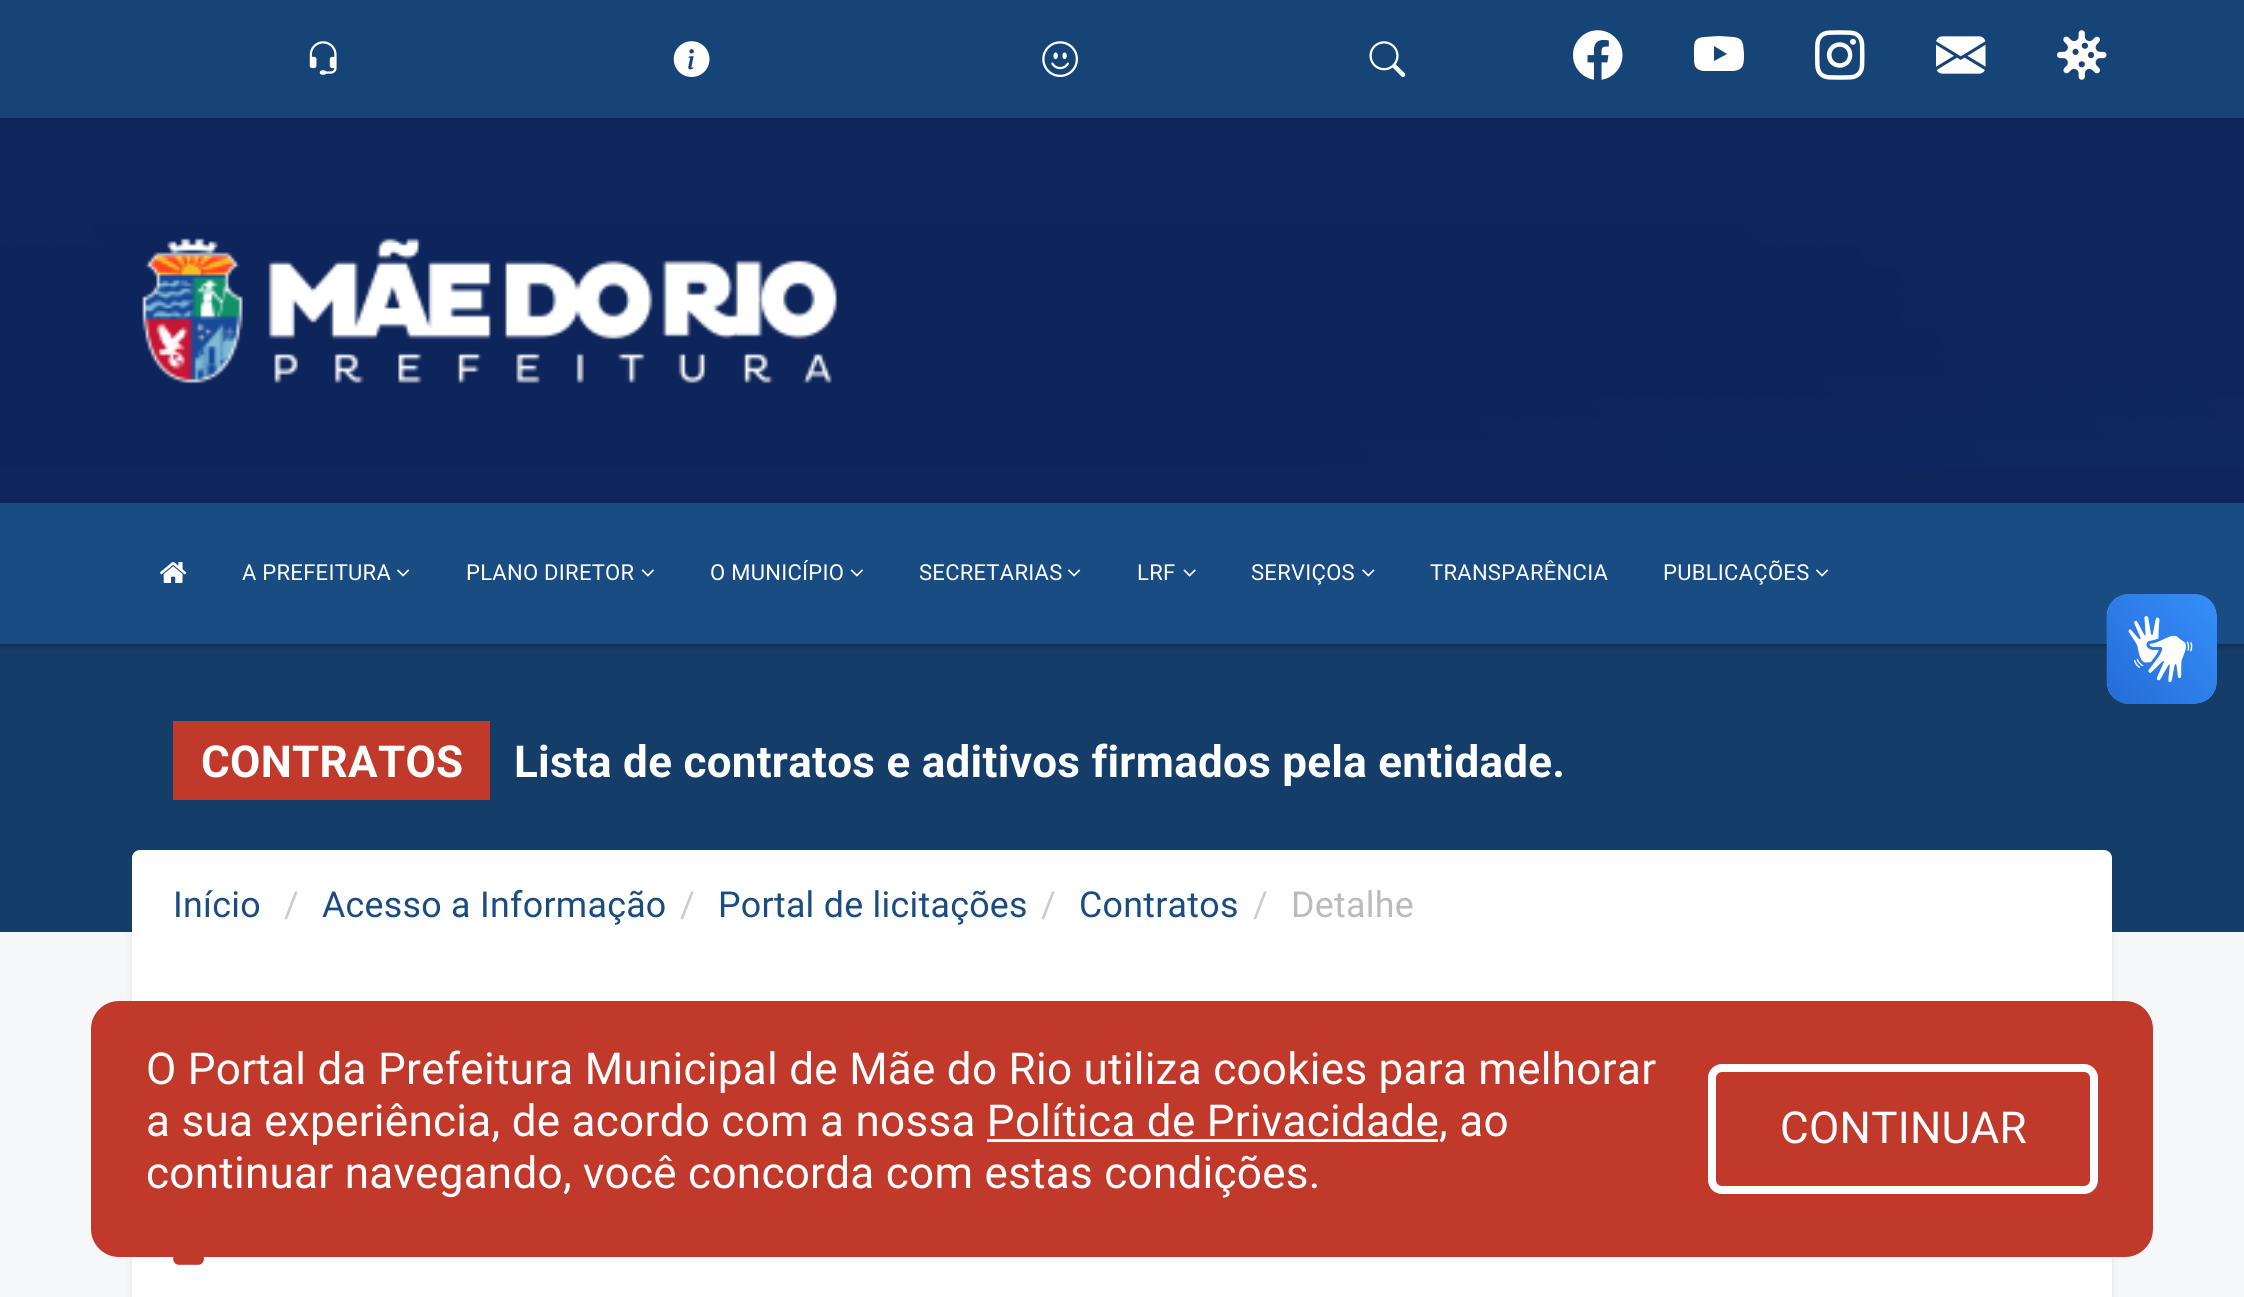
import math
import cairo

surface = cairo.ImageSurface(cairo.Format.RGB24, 2244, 1297)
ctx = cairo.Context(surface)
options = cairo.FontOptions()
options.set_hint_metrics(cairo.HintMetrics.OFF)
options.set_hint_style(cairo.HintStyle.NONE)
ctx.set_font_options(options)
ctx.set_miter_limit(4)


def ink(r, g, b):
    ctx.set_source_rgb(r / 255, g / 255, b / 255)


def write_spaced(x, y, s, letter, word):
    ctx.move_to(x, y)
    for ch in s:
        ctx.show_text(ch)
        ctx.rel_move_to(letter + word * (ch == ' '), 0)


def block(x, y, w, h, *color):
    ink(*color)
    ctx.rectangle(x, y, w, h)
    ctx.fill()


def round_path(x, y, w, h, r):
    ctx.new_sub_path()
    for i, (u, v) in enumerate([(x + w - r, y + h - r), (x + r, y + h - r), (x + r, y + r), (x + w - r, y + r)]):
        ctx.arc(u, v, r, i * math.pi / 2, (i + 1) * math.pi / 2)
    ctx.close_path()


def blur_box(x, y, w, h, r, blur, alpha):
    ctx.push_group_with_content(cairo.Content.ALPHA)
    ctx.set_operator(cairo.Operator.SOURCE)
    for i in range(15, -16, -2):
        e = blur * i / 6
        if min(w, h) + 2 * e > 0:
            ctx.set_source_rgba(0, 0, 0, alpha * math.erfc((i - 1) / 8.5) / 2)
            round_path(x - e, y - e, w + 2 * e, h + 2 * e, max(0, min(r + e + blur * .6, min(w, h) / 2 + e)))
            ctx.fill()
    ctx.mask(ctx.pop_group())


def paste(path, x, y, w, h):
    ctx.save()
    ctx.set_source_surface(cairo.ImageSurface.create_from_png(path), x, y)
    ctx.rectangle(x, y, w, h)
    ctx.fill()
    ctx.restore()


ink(246, 247, 248)
ctx.paint()
ink(3, 0, 71)
blur_box(132, 853, 1980, 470, 14, 4, 0.09)
block(0, 644, 2244, 288, 20, 61, 105)
ink(0, 0, 0)
blur_box(0, 3, 2244, 643, 0, 3, 0.3)
paste("pic1.png", 0, 118, 2244, 385)
block(0, 0, 2244, 118, 23, 68, 118)
paste("pic2.png", 309, 41, 28, 34)
paste("pic3.png", 673, 41, 37, 36)
paste("pic4.png", 1042, 41, 36, 36)
paste("pic5.png", 1369, 41, 37, 36)
paste("pic6.png", 1573, 30, 50, 50)
ink(255, 255, 255)
ctx.new_path()
ctx.move_to(1719, 36)
ctx.line_to(1733, 37)
ctx.curve_to(1744, 38, 1743, 44, 1744, 54)
ctx.curve_to(1744, 64, 1744, 70, 1733, 71)
ctx.line_to(1719, 71)
ctx.line_to(1704, 71)
ctx.curve_to(1693, 70, 1694, 63, 1694, 54)
ctx.curve_to(1694, 44, 1693, 38, 1704, 37)
ctx.close_path()
ctx.move_to(1714, 46)
ctx.line_to(1714, 61)
ctx.line_to(1727, 54)
ctx.close_path()
ctx.fill()
paste("pic7.png", 1815, 30, 50, 50)
paste("pic8.png", 1936, 36, 50, 38)
paste("pic9.png", 2057, 30, 50, 50)
paste("pic10.png", 142, 238, 695, 146)
block(0, 503, 2244, 141, 25, 76, 131)
paste("pic11.png", 160, 562, 27, 21)
ctx.select_font_face("Roboto")
ctx.set_font_size(22)
ink(255, 255, 255)
write_spaced(242, 580, "A PREFEITURA", 0.28, 0)
paste("pic12.png", 397, 569, 13, 8)
write_spaced(466, 580, "PLANO DIRETOR", 0.28, 0)
paste("pic13.png", 641, 569, 13, 8)
write_spaced(710, 580, "O MUNICÍPIO", 0.28, 0)
paste("pic13.png", 850, 569, 13, 8)
write_spaced(919, 580, "SECRETARIAS", 0.28, 0)
paste("pic12.png", 1068, 569, 13, 8)
write_spaced(1137, 580, "LRF", 0.28, 0)
paste("pic14.png", 1183, 569, 13, 8)
write_spaced(1251, 580, "SERVIÇOS", 0.28, 0)
paste("pic15.png", 1362, 569, 13, 8)
write_spaced(1430, 580, "TRANSPARÊNCIA", 0.28, 0)
write_spaced(1663, 580, "PUBLICAÇÕES", 0.28, 0)
paste("pic12.png", 1816, 569, 13, 8)
paste("pic16.png", 2106, 594, 111, 110)
paste("pic17.png", 2107, 594, 110, 110)
block(173, 721, 317, 79, 192, 57, 43)
ctx.select_font_face("Roboto", cairo.FontSlant.NORMAL, cairo.FontWeight.BOLD)
ctx.set_font_size(44)
ink(255, 255, 255)
write_spaced(201, 777, "CONTRATOS", 0.28, 0)
write_spaced(514, 777, "Lista de contratos e aditivos firmados pela entidade.", 0.28, 0)
block(132, 952, 1980, 345, 255, 255, 255)
round_path(132, 850, 1980, 110, 8)
ctx.fill()
ctx.select_font_face("Roboto")
ctx.set_font_size(35.75)
ink(25, 76, 131)
write_spaced(173, 917, "Início", 0.28, 0)
ink(204, 204, 204)
write_spaced(284, 917, "/", 0.28, 0)
ink(25, 76, 131)
write_spaced(322, 917, "Acesso a Informação", 0.28, 0)
ink(204, 204, 204)
write_spaced(680, 917, "/", 0.28, 0)
ink(25, 76, 131)
write_spaced(718, 917, "Portal de licitações", 0.28, 0)
ink(204, 204, 204)
write_spaced(1041, 917, "/", 0.28, 0)
ink(25, 76, 131)
write_spaced(1079, 917, "Contratos", 0.28, 0)
ink(204, 204, 204)
write_spaced(1253, 917, "/", 0.28, 0)
ink(187, 187, 187)
write_spaced(1291, 917, "Detalhe", 0.28, 0)
paste("pic18.png", 173, 1257, 31, 8)
ink(192, 57, 43)
round_path(91, 1001, 2062, 256, 28)
ctx.fill()
ctx.set_font_size(44)
ink(255, 255, 255)
write_spaced(146, 1084, "O Portal da Prefeitura Municipal de Mãe do Rio utiliza cookies para melhorar", 0.28, 0)
write_spaced(146, 1136, "a sua experiência, de acordo com a nossa Política de Privacidade, ao", 0.28, 0)
block(987, 1139, 451, 3, 255, 255, 255)
write_spaced(146, 1188, "continuar navegando, você concorda com estas condições.", 0.28, 0)
round_path(1712, 1068, 382, 122, 10)
ctx.set_line_width(8)
ctx.stroke()
write_spaced(1780, 1143, "CONTINUAR", 0.28, 0)
surface.write_to_png("screenshot.png")
